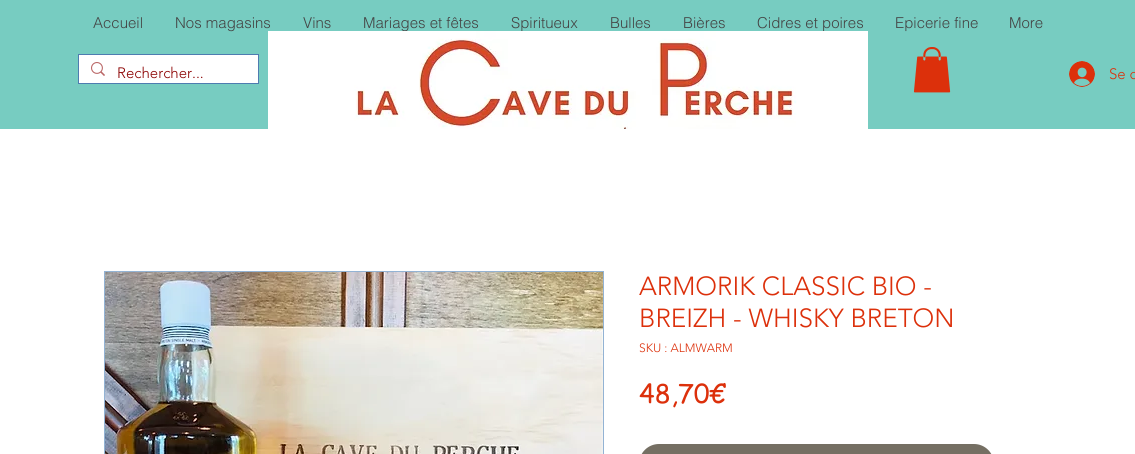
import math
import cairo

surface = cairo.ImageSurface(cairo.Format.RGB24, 1135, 454)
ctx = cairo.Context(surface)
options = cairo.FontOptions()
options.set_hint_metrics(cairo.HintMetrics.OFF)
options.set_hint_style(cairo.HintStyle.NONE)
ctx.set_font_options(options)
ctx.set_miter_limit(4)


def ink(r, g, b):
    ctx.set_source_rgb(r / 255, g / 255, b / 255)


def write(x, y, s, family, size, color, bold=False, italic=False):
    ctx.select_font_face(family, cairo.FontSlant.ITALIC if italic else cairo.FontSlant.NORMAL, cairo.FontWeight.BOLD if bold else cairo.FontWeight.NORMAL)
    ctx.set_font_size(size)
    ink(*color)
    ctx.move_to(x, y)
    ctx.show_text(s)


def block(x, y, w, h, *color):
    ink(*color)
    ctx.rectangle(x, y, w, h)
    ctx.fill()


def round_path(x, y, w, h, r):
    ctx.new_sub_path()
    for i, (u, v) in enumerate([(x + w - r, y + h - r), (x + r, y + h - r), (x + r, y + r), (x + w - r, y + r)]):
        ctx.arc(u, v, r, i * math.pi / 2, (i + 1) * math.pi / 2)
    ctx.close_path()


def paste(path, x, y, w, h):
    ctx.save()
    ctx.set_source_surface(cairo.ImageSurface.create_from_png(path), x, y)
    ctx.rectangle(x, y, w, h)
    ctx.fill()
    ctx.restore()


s1 = dict(family="helvetica Light", size=15, color=(68, 68, 68))
s2 = dict(family="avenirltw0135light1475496 Light", size=15, color=(139, 0, 0))
s3 = dict(family="avenirltw0135light1475496 Light", size=15, color=(220, 48, 11))
s4 = dict(family="avenirltw0135light1475496 Light", size=26, color=(220, 48, 11))
s5 = dict(family="avenirltw0135light1475496 Light", size=12, color=(220, 48, 11))
s6 = dict(family="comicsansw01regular", size=26, color=(220, 48, 11))

ink(119, 204, 193)
ctx.paint()
write(93, 28, "Accueil", **s1)
write(175, 28, "Nos magasins", **s1)
write(303, 28, "Vins", **s1)
write(363, 28, "Mariages et fêtes", **s1)
write(511, 28, "Spiritueux", **s1)
write(610, 28, "Bulles", **s1)
write(683, 28, "Bières", **s1)
write(757, 28, "Cidres et poires", **s1)
write(895, 28, "Epicerie fine", **s1)
write(1009, 28, "More", **s1)
ctx.rectangle(78.5, 54.5, 180, 29)
ink(78, 124, 176)
ctx.set_line_width(1)
ctx.stroke()
block(79, 55, 179, 28, 255, 255, 255)
paste("pic1.png", 91, 62, 14, 14)
write(117, 78, "Rechercher...", **s2)
paste("pic2.png", 268, 31, 600, 98)
paste("pic3.png", 913, 47, 38, 46)
paste("pic4.png", 1069, 61, 26, 26)
write(1109, 79, "Se c", **s3)
block(0, 129, 1135, 325, 255, 255, 255)
ctx.rectangle(104.5, 271.5, 499, 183)
ink(147, 179, 212)
ctx.stroke()
paste("pic5.png", 105, 272, 498, 182)
write(639, 295, "ARMORIK CLASSIC BIO -", **s4)
write(639, 327, "BREIZH - WHISKY BRETON", **s4)
write(639, 352, "SKU : ALMWARM", **s5)
write(639, 403, "48,70€", **s6)
ink(117, 111, 99)
round_path(639, 444, 355, 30, 20)
ctx.fill()
surface.write_to_png("screenshot.png")
